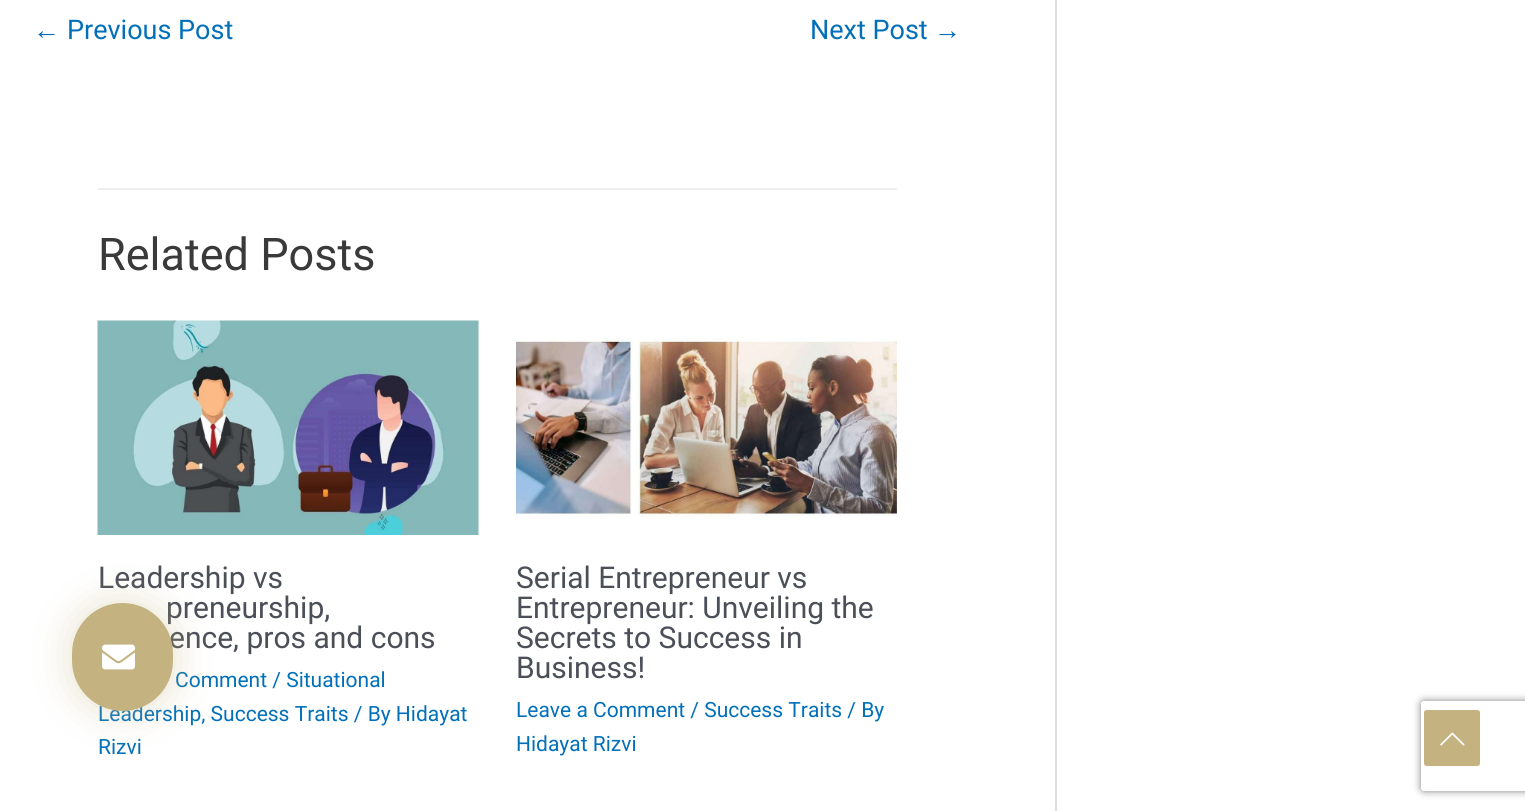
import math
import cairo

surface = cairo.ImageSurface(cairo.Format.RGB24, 1525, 811)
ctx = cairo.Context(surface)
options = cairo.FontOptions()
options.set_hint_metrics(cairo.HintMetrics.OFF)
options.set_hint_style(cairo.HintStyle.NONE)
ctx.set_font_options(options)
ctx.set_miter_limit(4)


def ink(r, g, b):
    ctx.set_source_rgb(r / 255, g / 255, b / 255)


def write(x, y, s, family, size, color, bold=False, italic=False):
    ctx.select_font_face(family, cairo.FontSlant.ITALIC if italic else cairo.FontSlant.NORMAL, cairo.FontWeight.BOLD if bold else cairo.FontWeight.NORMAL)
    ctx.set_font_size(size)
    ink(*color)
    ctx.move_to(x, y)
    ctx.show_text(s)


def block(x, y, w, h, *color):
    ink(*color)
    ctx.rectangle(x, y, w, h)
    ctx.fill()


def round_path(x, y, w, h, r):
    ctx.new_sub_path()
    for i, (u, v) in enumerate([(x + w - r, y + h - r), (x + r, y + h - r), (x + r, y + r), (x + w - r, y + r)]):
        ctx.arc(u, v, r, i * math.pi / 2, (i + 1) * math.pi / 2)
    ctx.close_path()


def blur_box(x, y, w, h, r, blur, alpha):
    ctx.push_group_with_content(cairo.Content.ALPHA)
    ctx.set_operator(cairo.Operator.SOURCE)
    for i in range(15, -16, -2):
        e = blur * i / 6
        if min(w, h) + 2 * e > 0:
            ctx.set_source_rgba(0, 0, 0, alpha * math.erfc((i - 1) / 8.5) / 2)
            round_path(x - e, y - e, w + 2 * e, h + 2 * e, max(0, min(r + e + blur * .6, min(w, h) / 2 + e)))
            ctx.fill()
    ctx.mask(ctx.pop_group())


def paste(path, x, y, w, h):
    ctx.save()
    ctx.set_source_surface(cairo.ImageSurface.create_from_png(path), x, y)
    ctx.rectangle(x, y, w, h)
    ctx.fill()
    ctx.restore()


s1 = dict(family="Liberation Sans", size=27, color=(1, 112, 185))
s2 = dict(family="Roboto", size=27, color=(1, 112, 185))
s3 = dict(family="Roboto", size=45, color=(58, 58, 58))
s4 = dict(family="Roboto", size=30, color=(75, 79, 88))
s5 = dict(family="Roboto", size=21, color=(1, 112, 185))

ink(255, 255, 255)
ctx.paint()
block(1055, 0, 2, 811, 221, 221, 221)
write(33, 39, "←", **s1)
write(67, 39, "Previous Post", **s2)
write(810, 39, "Next Post", **s2)
write(934, 39, "→", **s1)
block(98, 188, 799, 2, 238, 238, 238)
write(98, 270, "Related Posts", **s3)
paste("pic1.png", 97, 320, 382, 215)
write(98, 588, "Leadership vs", **s4)
write(166, 618, "preneurship,", **s4)
write(169, 648, "ence, pros and cons", **s4)
write(175, 687, "Comment / Situational", **s5)
write(98, 721, "Leadership, Success Traits / By Hidayat", **s5)
write(98, 754, "Rizvi", **s5)
paste("pic2.png", 516, 338, 381, 179)
write(516, 588, "Serial Entrepreneur vs", **s4)
write(516, 618, "Entrepreneur: Unveiling the", **s4)
write(516, 648, "Secrets to Success in", **s4)
write(516, 678, "Business!", **s4)
write(516, 717, "Leave a Comment / Success Traits / By", **s5)
write(516, 751, "Hidayat Rizvi", **s5)
ink(196, 179, 129)
blur_box(72, 603, 101, 108, 50.5, 19, 0.41)
ink(196, 179, 129)
round_path(72, 603, 101, 108, 50.5)
ctx.fill()
paste("pic3.png", 102, 644, 33, 26)
ctx.save()
ctx.set_fill_rule(cairo.FillRule.EVEN_ODD)
ctx.new_path()
ctx.move_to(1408, 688)
ctx.line_to(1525, 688)
ctx.line_to(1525, 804)
ctx.line_to(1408, 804)
ctx.close_path()
ctx.move_to(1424, 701)
ctx.line_to(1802, 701)
ctx.curve_to(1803.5, 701, 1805, 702.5, 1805, 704)
ctx.line_to(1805, 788)
ctx.curve_to(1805, 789.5, 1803.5, 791, 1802, 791)
ctx.line_to(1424, 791)
ctx.curve_to(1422.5, 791, 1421, 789.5, 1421, 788)
ctx.line_to(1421, 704)
ctx.curve_to(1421, 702.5, 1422.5, 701, 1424, 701)
ctx.close_path()
ctx.clip()
ink(128, 128, 128)
blur_box(1421, 701, 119, 90, 3, 4, 1)
ctx.restore()
ctx.new_path()
ctx.move_to(1477, 766)
ctx.line_to(1427, 766)
ctx.curve_to(1425, 766, 1424, 765, 1424, 763)
ctx.line_to(1424, 713)
ctx.curve_to(1424, 711, 1425, 710, 1427, 710)
ctx.line_to(1477, 710)
ctx.curve_to(1479, 710, 1480, 711, 1480, 713)
ctx.line_to(1480, 763)
ctx.curve_to(1480, 765, 1479, 766, 1477, 766)
ctx.close_path()
ctx.fill()
paste("pic4.png", 1440, 732, 25, 14)
surface.write_to_png("screenshot.png")
